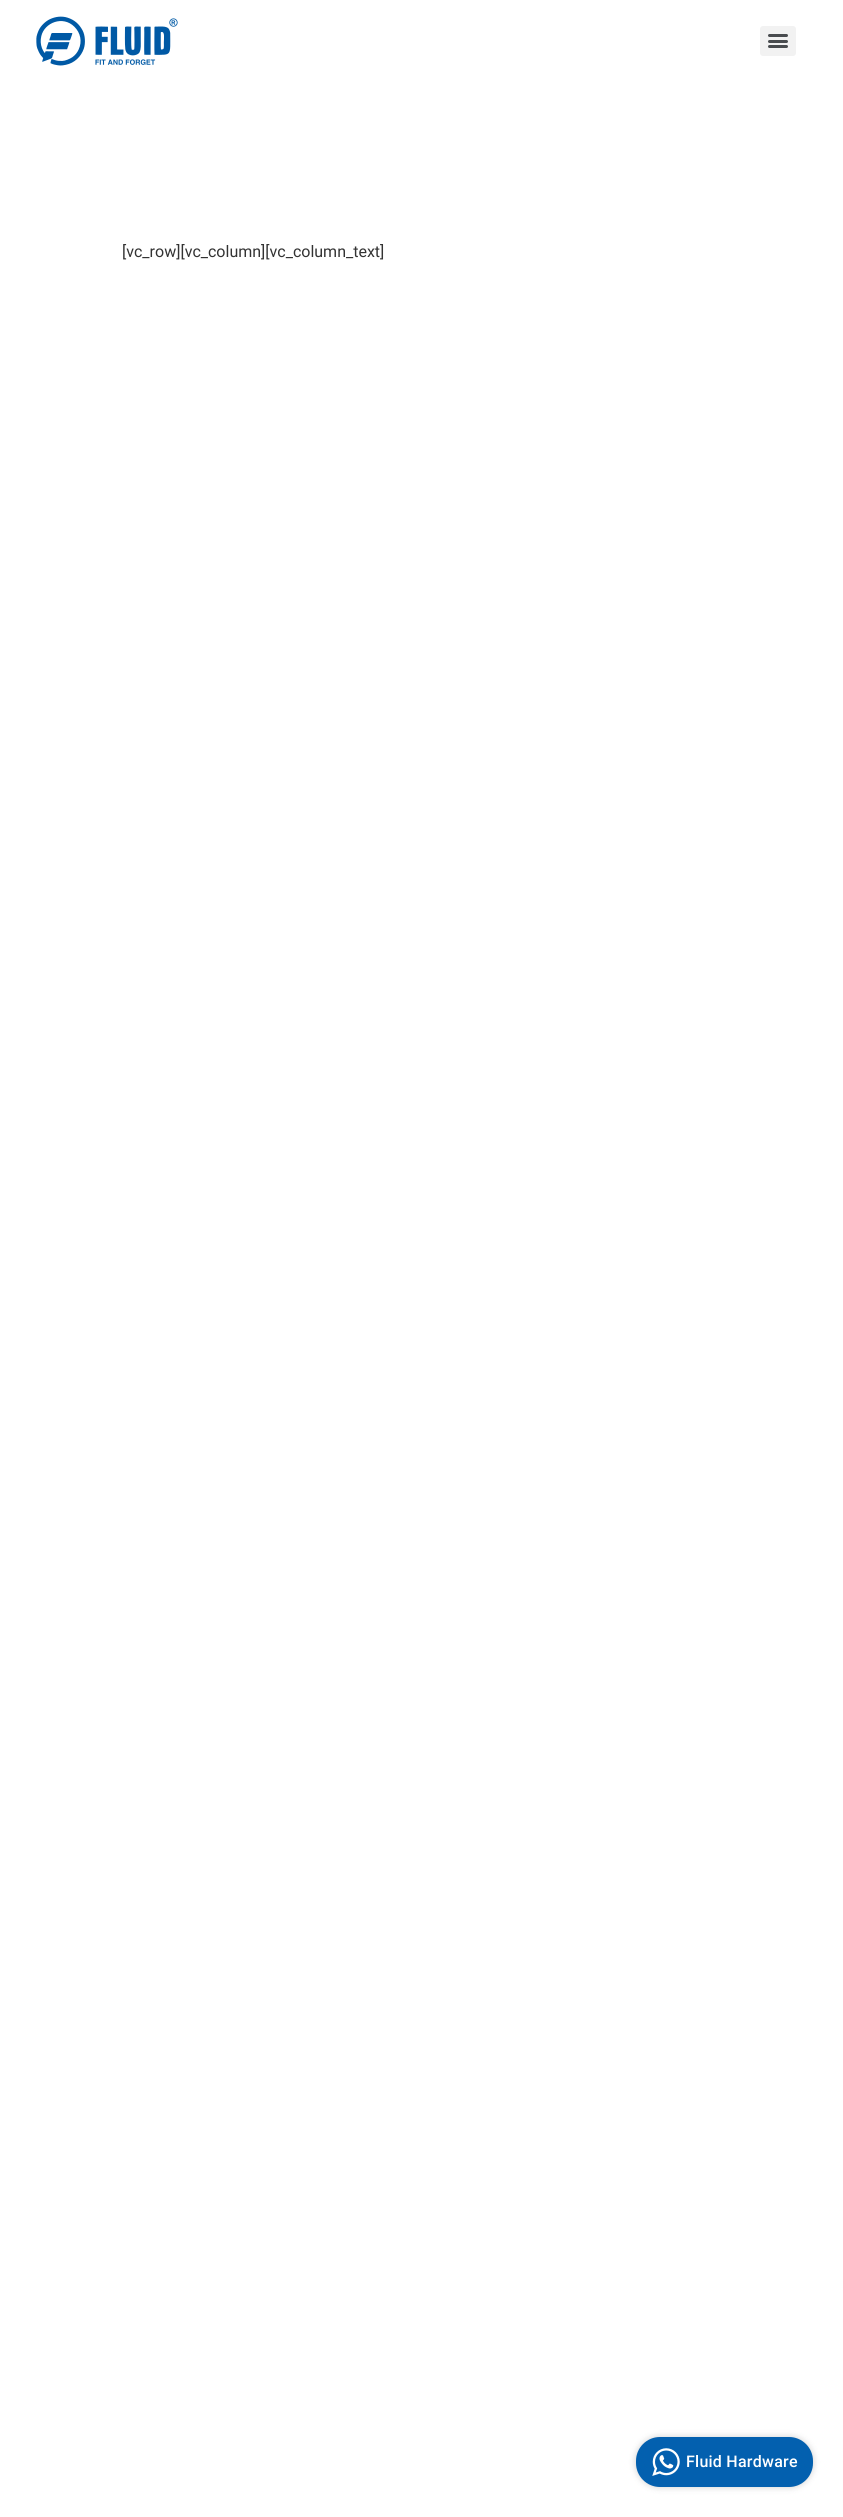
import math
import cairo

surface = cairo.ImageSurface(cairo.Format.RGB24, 843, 2517)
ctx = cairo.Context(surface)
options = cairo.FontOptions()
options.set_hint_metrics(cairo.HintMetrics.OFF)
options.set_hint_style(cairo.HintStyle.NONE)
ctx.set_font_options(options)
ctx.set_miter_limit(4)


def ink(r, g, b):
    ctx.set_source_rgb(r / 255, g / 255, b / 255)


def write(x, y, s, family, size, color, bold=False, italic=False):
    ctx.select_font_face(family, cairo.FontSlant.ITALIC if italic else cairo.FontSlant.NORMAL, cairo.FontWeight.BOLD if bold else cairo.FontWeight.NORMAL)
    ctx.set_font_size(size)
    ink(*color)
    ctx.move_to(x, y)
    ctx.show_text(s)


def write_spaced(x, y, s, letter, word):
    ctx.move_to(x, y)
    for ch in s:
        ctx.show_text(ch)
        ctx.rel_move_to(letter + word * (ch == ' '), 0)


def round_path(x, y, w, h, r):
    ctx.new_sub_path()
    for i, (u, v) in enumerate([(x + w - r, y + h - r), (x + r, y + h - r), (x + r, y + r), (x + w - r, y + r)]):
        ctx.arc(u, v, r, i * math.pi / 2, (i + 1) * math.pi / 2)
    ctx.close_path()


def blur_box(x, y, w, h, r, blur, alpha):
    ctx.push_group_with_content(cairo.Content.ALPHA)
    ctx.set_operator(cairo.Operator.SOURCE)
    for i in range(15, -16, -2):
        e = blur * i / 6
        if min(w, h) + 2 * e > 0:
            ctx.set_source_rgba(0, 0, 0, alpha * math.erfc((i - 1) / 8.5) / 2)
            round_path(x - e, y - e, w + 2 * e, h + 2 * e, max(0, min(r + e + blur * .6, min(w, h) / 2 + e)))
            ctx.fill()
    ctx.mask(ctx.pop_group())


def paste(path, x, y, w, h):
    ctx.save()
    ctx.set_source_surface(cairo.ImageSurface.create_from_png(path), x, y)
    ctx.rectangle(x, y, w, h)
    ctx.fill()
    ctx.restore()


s1 = dict(family="Roboto", size=16, color=(51, 51, 51))

ink(255, 255, 255)
ctx.paint()
paste("pic1.png", 36, 16, 142, 50)
ink(242, 242, 242)
round_path(760, 26, 36, 30, 3)
ctx.fill()
ink(73, 76, 79)
round_path(768, 40, 20, 3, 1.5)
ctx.fill()
round_path(768, 34, 20, 3, 1.5)
ctx.fill()
round_path(768, 45, 20, 3, 1.5)
ctx.fill()
write(122, 257, "[vc_row][vc_column][vc_column_text]", **s1)
ink(0, 0, 0)
blur_box(636, 2437, 177, 50, 24, 3.5, 0.2)
ink(3, 96, 175)
round_path(636, 2437, 177, 50, 24)
ctx.fill()
paste("pic2.png", 652, 2448, 28, 28)
ctx.select_font_face("Roboto Medium")
ink(255, 255, 255)
write_spaced(686, 2467, "Fluid Hardware", 0.25, 0)
surface.write_to_png("screenshot.png")
